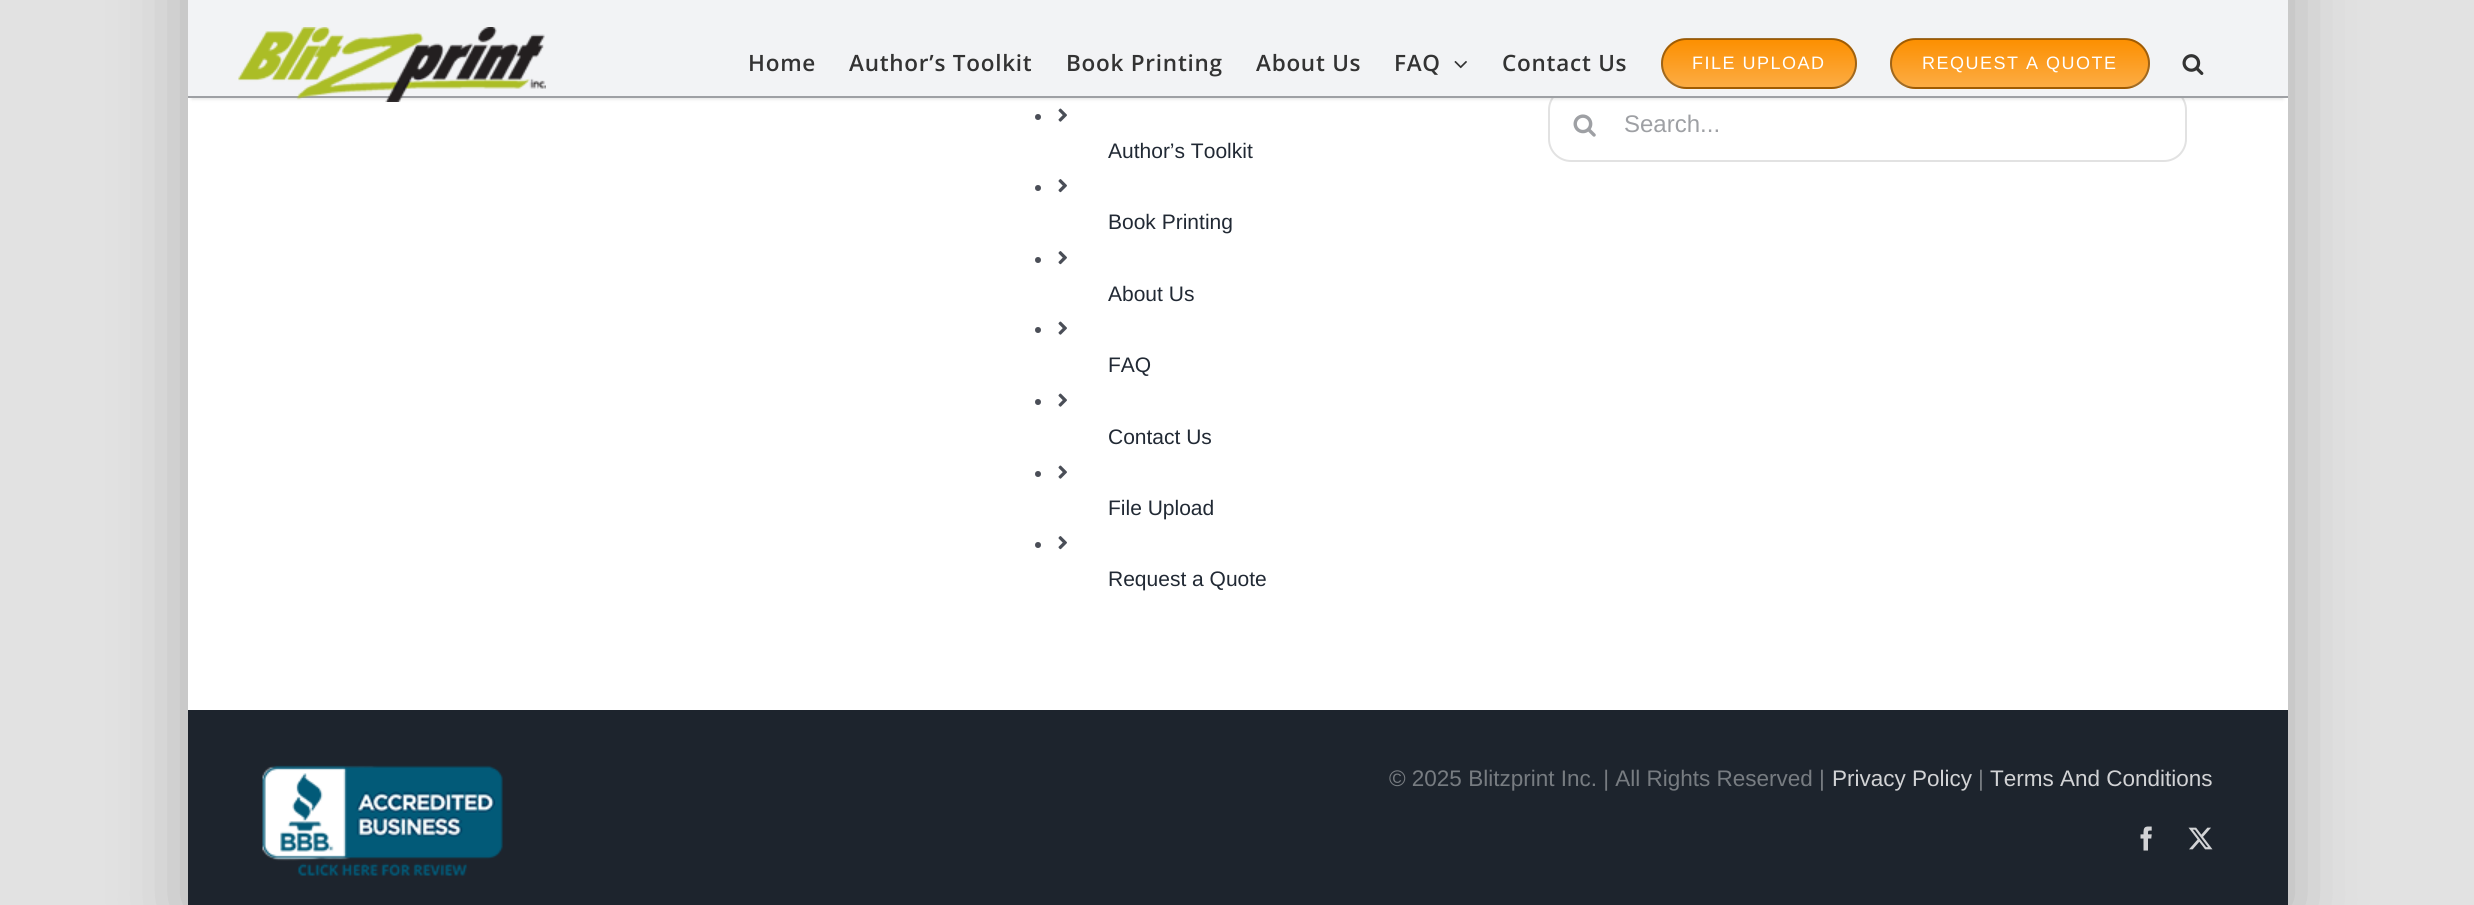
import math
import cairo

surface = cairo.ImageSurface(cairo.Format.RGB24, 2474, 905)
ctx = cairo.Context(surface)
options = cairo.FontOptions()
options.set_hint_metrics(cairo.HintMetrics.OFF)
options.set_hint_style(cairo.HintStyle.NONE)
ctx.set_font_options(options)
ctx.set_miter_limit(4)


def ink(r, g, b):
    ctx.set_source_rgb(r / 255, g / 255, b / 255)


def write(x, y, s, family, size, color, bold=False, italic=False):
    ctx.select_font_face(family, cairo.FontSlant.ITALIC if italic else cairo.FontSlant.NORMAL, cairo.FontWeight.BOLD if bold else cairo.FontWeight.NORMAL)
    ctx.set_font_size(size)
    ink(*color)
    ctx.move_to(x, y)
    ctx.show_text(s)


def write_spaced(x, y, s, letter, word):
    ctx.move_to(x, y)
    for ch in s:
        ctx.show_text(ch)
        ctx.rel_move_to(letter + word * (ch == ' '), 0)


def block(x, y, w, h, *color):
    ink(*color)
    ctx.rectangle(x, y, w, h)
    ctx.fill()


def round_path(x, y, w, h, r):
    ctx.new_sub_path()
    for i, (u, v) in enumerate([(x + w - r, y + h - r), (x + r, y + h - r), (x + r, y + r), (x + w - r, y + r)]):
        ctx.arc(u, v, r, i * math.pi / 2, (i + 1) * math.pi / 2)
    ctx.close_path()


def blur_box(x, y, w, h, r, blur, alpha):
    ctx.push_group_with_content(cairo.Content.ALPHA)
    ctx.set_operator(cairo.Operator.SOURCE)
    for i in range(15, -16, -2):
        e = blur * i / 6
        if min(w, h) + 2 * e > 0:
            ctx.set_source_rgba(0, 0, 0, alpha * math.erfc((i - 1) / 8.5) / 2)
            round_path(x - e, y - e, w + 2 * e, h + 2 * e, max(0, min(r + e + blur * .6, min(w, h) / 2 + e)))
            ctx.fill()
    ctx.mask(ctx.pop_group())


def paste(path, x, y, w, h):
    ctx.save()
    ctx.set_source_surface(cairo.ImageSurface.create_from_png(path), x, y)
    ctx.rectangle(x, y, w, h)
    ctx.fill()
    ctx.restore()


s1 = dict(family="Liberation Sans", size=24, color=(158, 160, 164))
s2 = dict(family="Liberation Sans", size=21, color=(33, 41, 52))
s3 = dict(family="Liberation Sans", size=22.5, color=(119, 124, 129))
s4 = dict(family="Liberation Sans", size=22.5, color=(210, 211, 213))

ink(226, 226, 226)
ctx.paint()
ink(0, 0, 0)
blur_box(186, -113, 2103, 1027, 0, 37.5, 0.22)
block(188, 98, 2100, 612, 255, 255, 255)
round_path(1549, 88, 637, 73, 22)
ink(226, 226, 226)
ctx.stroke()
ink(0, 0, 0)
blur_box(192, 11, 2091, 88, 0, 2, 0.12)
block(188, 0, 2100, 96, 242, 243, 245)
block(188, 96, 2100, 2, 158, 160, 164)
paste("pic1.png", 238, 27, 308, 75)
ctx.select_font_face("Open Sans SemiBold")
ctx.set_font_size(22.5)
ink(51, 51, 51)
write_spaced(748, 71, "Home", 0.75, 0)
write_spaced(849, 71, "Author’s Toolkit", 0.75, 0)
write_spaced(1066, 71, "Book Printing", 0.75, 0)
write_spaced(1256, 71, "About Us", 0.75, 0)
write_spaced(1394, 71, "FAQ", 0.75, 0)
paste("pic2.png", 1454, 61, 13, 8)
write_spaced(1502, 71, "Contact Us", 0.75, 0)
ctx.save()
round_path(1661, 38, 196, 51, 25.5)
ctx.clip()
gradient = cairo.LinearGradient(1759, -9, 1759, 39)
gradient.add_color_stop_rgba(0, 0.988, 0.561, 0, 1)
gradient.add_color_stop_rgba(1, 0.988, 0.675, 0.267, 1)
ctx.set_source(gradient)
ctx.rectangle(1679, 38, 160, 1)
ctx.fill()
gradient = cairo.LinearGradient(1759, 39, 1759, 87)
gradient.add_color_stop_rgba(0, 0.988, 0.561, 0, 1)
gradient.add_color_stop_rgba(1, 0.988, 0.675, 0.267, 1)
ctx.set_source(gradient)
ctx.rectangle(1661, 39, 196, 48)
ctx.fill()
gradient = cairo.LinearGradient(1759, 87, 1759, 135)
gradient.add_color_stop_rgba(0, 0.988, 0.561, 0, 1)
gradient.add_color_stop_rgba(1, 0.988, 0.675, 0.267, 1)
ctx.set_source(gradient)
ctx.rectangle(1676, 87, 166, 2)
ctx.fill()
ctx.restore()
round_path(1662, 39, 194, 49, 24.5)
ctx.set_source_rgba(0, 0, 0, 0.37)
ctx.stroke()
ctx.select_font_face("Liberation Sans")
ctx.set_font_size(18)
ink(255, 255, 255)
write_spaced(1692, 69, "FILE UPLOAD", 1.5, 0)
ctx.save()
round_path(1890, 38, 260, 51, 25.5)
ctx.clip()
gradient = cairo.LinearGradient(2020, -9, 2020, 39)
gradient.add_color_stop_rgba(0, 0.988, 0.561, 0, 1)
gradient.add_color_stop_rgba(1, 0.988, 0.675, 0.267, 1)
ctx.set_source(gradient)
ctx.rectangle(1908, 38, 224, 1)
ctx.fill()
gradient = cairo.LinearGradient(2020, 39, 2020, 87)
gradient.add_color_stop_rgba(0, 0.988, 0.561, 0, 1)
gradient.add_color_stop_rgba(1, 0.988, 0.675, 0.267, 1)
ctx.set_source(gradient)
ctx.rectangle(1890, 39, 260, 48)
ctx.fill()
gradient = cairo.LinearGradient(2020, 87, 2020, 135)
gradient.add_color_stop_rgba(0, 0.988, 0.561, 0, 1)
gradient.add_color_stop_rgba(1, 0.988, 0.675, 0.267, 1)
ctx.set_source(gradient)
ctx.rectangle(1905, 87, 230, 2)
ctx.fill()
ctx.restore()
round_path(1891, 39, 258, 49, 24.5)
ctx.set_source_rgba(0, 0, 0, 0.37)
ctx.stroke()
ink(255, 255, 255)
write_spaced(1922, 69, "REQUEST A QUOTE", 1.5, 0)
paste("pic3.png", 2182, 54, 22, 21)
paste("pic4.png", 1573, 114, 23, 23)
write(1624, 132, "Search...", **s1)
ink(74, 78, 87)
ctx.new_path()
ctx.arc(1038, 117, 3, 0, 2 * math.pi)
ctx.fill()
paste("pic5.png", 1058, 108, 9, 14)
write(1108, 158, "Author’s Toolkit", **s2)
ink(74, 78, 87)
ctx.new_path()
ctx.arc(1038, 188, 3, 0, 2 * math.pi)
ctx.fill()
paste("pic6.png", 1058, 179, 9, 14)
write(1108, 229, "Book Printing", **s2)
ink(74, 78, 87)
ctx.new_path()
ctx.arc(1038, 260, 3, 0, 2 * math.pi)
ctx.fill()
paste("pic6.png", 1058, 251, 9, 14)
write(1108, 301, "About Us", **s2)
ink(74, 78, 87)
ctx.new_path()
ctx.arc(1038, 330, 3, 0, 2 * math.pi)
ctx.fill()
paste("pic5.png", 1058, 321, 9, 14)
write(1108, 372, "FAQ", **s2)
ink(74, 78, 87)
ctx.new_path()
ctx.arc(1038, 402, 3, 0, 2 * math.pi)
ctx.fill()
paste("pic5.png", 1058, 393, 9, 14)
write(1108, 444, "Contact Us", **s2)
ink(74, 78, 87)
ctx.new_path()
ctx.arc(1038, 474, 3, 0, 2 * math.pi)
ctx.fill()
paste("pic5.png", 1058, 465, 9, 14)
write(1108, 515, "File Upload", **s2)
ink(74, 78, 87)
ctx.new_path()
ctx.arc(1038, 545, 3, 0, 2 * math.pi)
ctx.fill()
paste("pic6.png", 1058, 536, 9, 14)
write(1108, 586, "Request a Quote", **s2)
block(188, 710, 2100, 195, 29, 36, 45)
paste("pic7.png", 262, 765, 241, 111)
write(1389, 786, "© 2025 Blitzprint Inc. | All Rights Reserved |", **s3)
write(1832, 786, "Privacy Policy", **s4)
write(1978, 786, "|", **s3)
write(1990, 786, "Terms And Conditions", **s4)
paste("pic8.png", 2140, 826, 12, 25)
paste("pic9.png", 2188, 827, 25, 23)
surface.write_to_png("screenshot.png")
